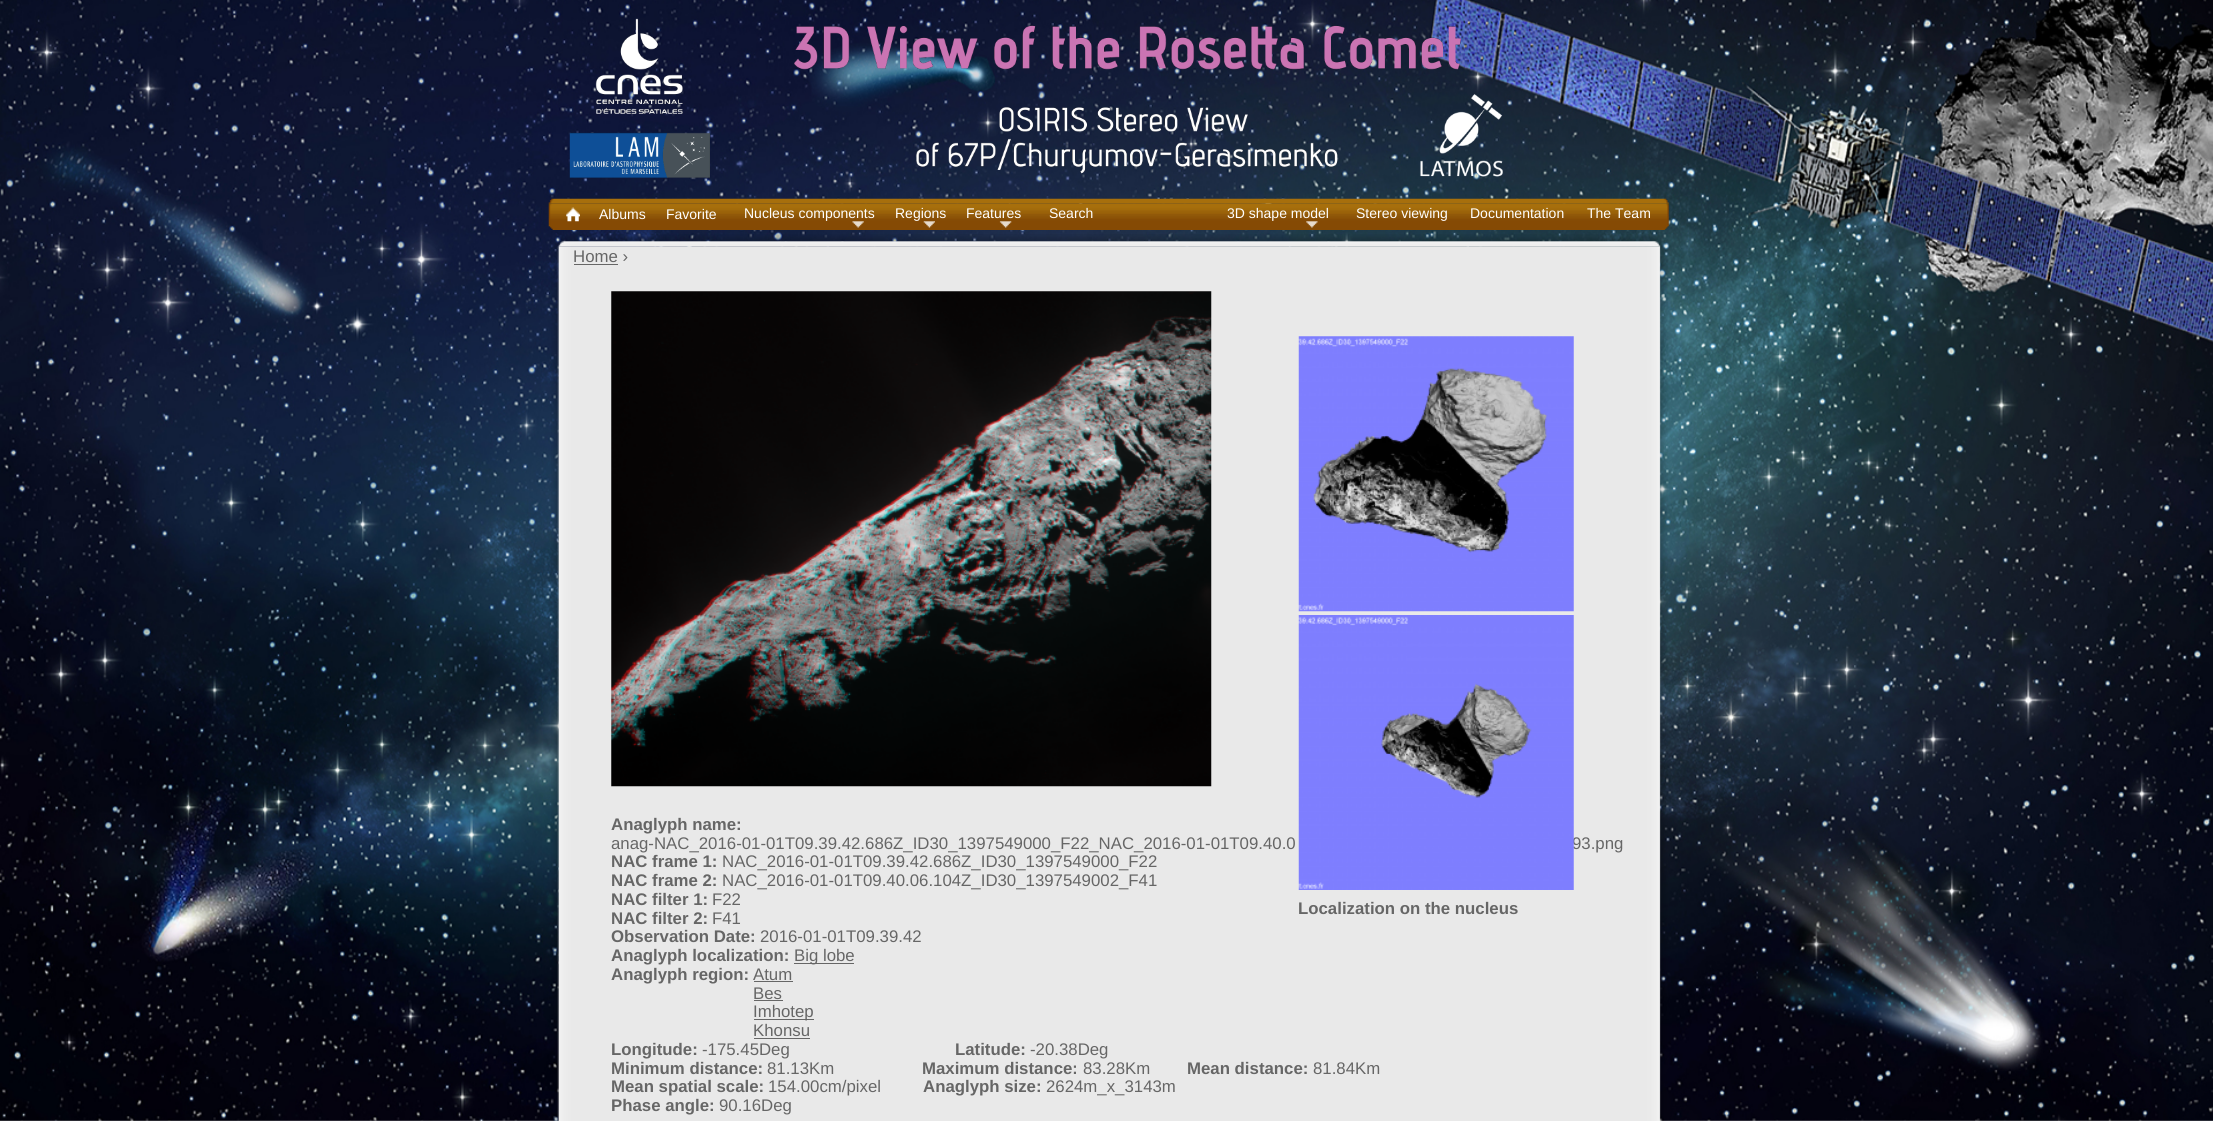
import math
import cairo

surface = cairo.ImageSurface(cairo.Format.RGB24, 2213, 1121)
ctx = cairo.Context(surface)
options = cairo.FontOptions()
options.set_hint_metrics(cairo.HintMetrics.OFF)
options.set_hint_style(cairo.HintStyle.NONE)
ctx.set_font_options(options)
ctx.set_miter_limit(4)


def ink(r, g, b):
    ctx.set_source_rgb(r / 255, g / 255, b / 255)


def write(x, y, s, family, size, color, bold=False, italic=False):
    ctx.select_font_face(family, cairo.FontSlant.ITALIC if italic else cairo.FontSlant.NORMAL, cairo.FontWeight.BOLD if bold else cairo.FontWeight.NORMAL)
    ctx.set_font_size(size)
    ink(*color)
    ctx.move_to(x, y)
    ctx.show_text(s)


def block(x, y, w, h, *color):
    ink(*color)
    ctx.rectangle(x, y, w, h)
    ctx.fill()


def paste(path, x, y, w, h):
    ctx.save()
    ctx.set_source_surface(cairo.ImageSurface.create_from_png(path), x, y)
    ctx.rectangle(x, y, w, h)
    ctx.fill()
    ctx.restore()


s1 = dict(family="Liberation Sans", size=14, color=(255, 255, 255))
s2 = dict(family="Liberation Sans", size=16.8, color=(102, 102, 102))
s3 = dict(family="Liberation Sans", size=16.8, color=(102, 102, 102), bold=True)

ink(255, 255, 255)
ctx.paint()
paste("pic1.png", 0, 0, 2213, 1121)
paste("pic2.png", 569, 18, 934, 160)
paste("pic3.png", 548, 198, 1121, 6)
paste("pic4.png", 548, 203, 1121, 22)
paste("pic5.png", 566, 207, 14, 15)
write(599, 219, "Albums", **s1)
write(666, 219, "Favorite", **s1)
write(744, 218, "Nucleus components", **s1)
paste("pic10.png", 548, 225, 1121, 5)
paste("pic6.png", 852, 221, 12, 7)
write(895, 218, "Regions", **s1)
paste("pic7.png", 923, 221, 12, 7)
write(966, 218, "Features", **s1)
paste("pic8.png", 999, 221, 13, 7)
write(1049, 218, "Search", **s1)
write(1227, 218, "3D shape model", **s1)
paste("pic9.png", 1306, 221, 12, 7)
write(1356, 218, "Stereo viewing", **s1)
write(1470, 218, "Documentation", **s1)
write(1587, 218, "The Team", **s1)
paste("pic11.png", 555, 234, 1112, 13)
paste("pic12.png", 551, 246, 1117, 875)
write(573, 262, "Home ›", **s2)
block(574, 264, 44, 1, 102, 102, 102)
paste("pic13.png", 611, 291, 601, 496)
write(611, 830, "Anaglyph name:", **s3)
write(611, 849, "anag-NAC_2016-01-01T09.39.42.686Z_ID30_1397549000_F22_NAC_2016-01-01T09.40.0", **s2)
write(1572, 849, "93.png", **s2)
write(611, 867, "NAC frame 1:", **s3)
write(722, 867, "NAC_2016-01-01T09.39.42.686Z_ID30_1397549000_F22", **s2)
write(611, 886, "NAC frame 2:", **s3)
write(722, 886, "NAC_2016-01-01T09.40.06.104Z_ID30_1397549002_F41", **s2)
write(611, 905, "NAC filter 1:", **s3)
write(712, 905, "F22", **s2)
paste("pic14.png", 1298, 336, 276, 276)
paste("pic15.png", 1298, 615, 276, 275)
write(1298, 914, "Localization on the nucleus", **s3)
write(611, 924, "NAC filter 2:", **s3)
write(712, 924, "F41", **s2)
write(611, 942, "Observation Date:", **s3)
write(760, 942, "2016-01-01T09.39.42", **s2)
write(611, 961, "Anaglyph localization:", **s3)
block(794, 963, 60, 1, 102, 102, 102)
write(794, 961, "Big lobe", **s2)
write(611, 980, "Anaglyph region:", **s3)
write(753, 980, "Atum", **s2)
block(754, 981, 39, 1, 102, 102, 102)
write(753, 999, "Bes", **s2)
block(754, 1000, 29, 1, 102, 102, 102)
block(754, 1019, 60, 1, 102, 102, 102)
write(753, 1017, "Imhotep", **s2)
write(753, 1036, "Khonsu", **s2)
block(754, 1038, 56, 1, 102, 102, 102)
write(611, 1055, "Longitude:", **s3)
write(702, 1055, "-175.45Deg", **s2)
write(955, 1055, "Latitude:", **s3)
write(1030, 1055, "-20.38Deg", **s2)
write(611, 1074, "Minimum distance:", **s3)
write(767, 1074, "81.13Km", **s2)
write(922, 1074, "Maximum distance:", **s3)
write(1083, 1074, "83.28Km", **s2)
write(1187, 1074, "Mean distance:", **s3)
write(1313, 1074, "81.84Km", **s2)
write(611, 1092, "Mean spatial scale:", **s3)
write(768, 1092, "154.00cm/pixel", **s2)
write(923, 1092, "Anaglyph size:", **s3)
write(1046, 1092, "2624m_x_3143m", **s2)
write(611, 1111, "Phase angle:", **s3)
write(719, 1111, "90.16Deg", **s2)
surface.write_to_png("screenshot.png")
